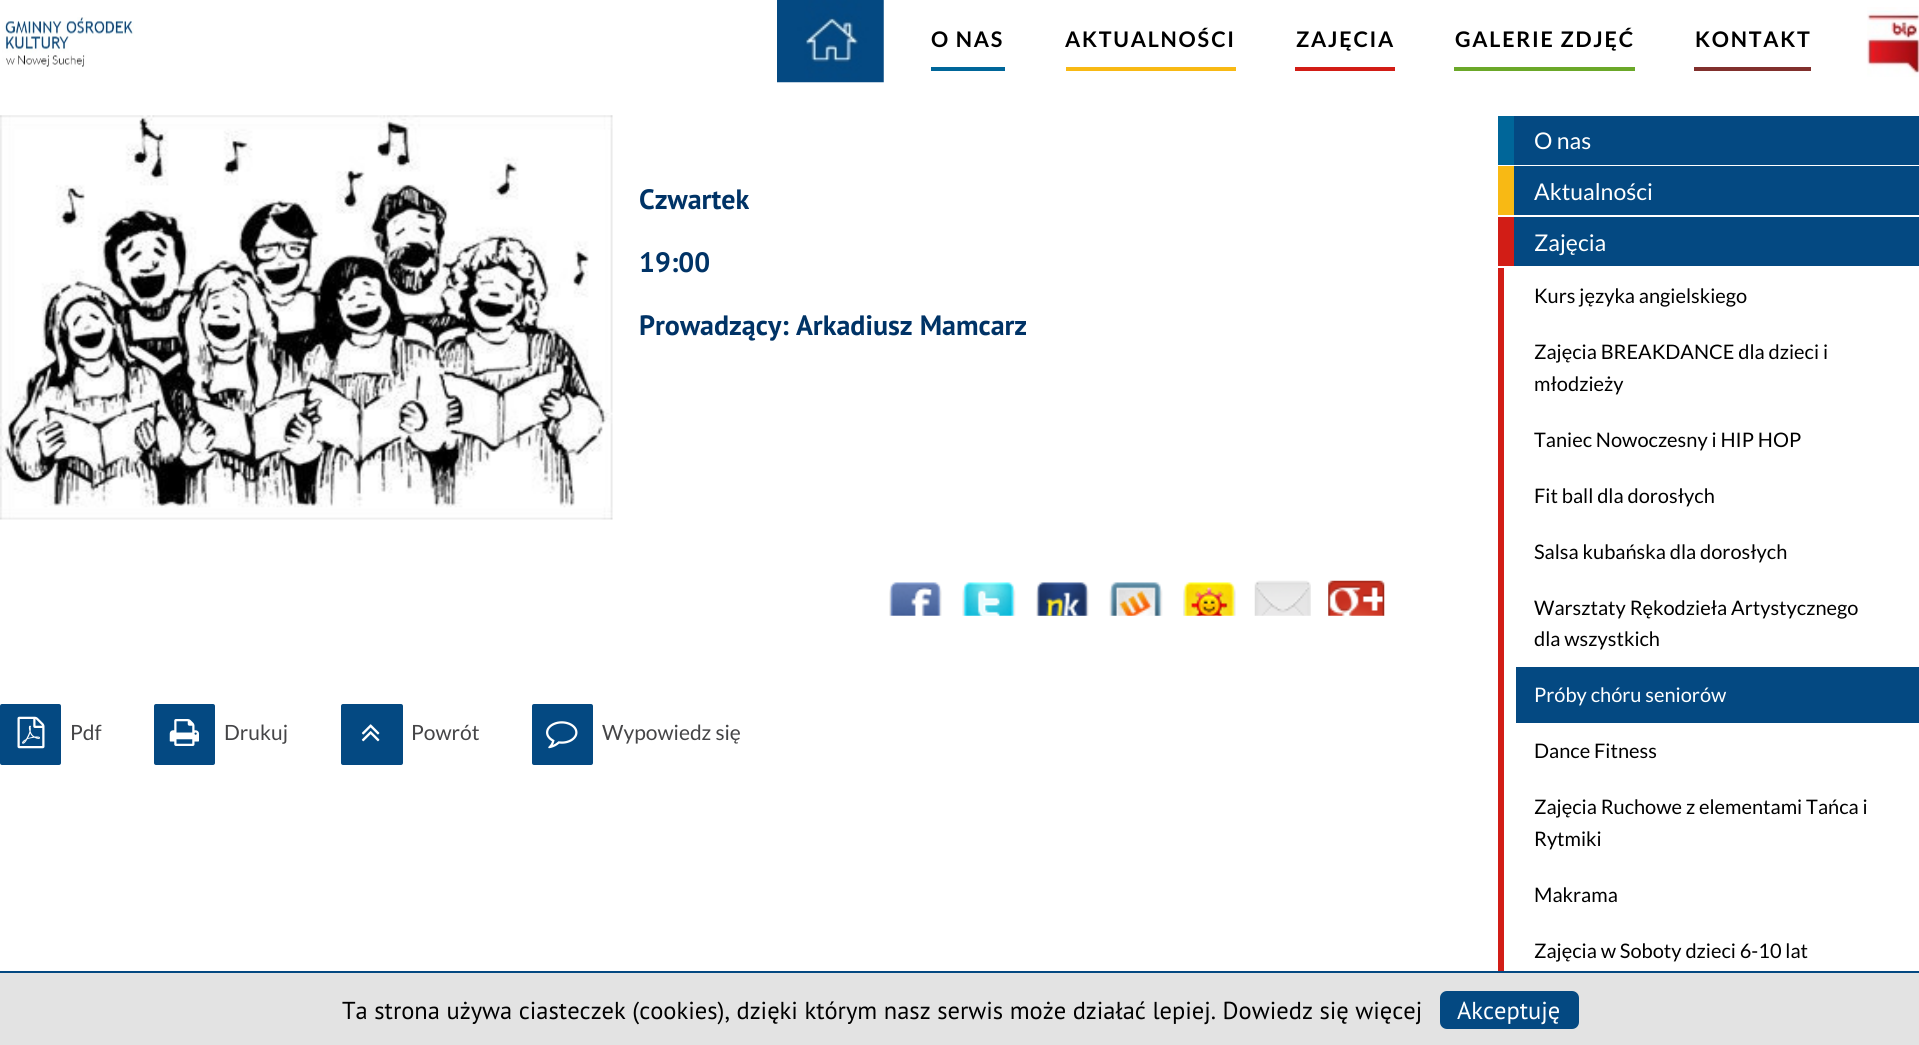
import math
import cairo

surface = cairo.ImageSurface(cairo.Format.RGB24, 1919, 1045)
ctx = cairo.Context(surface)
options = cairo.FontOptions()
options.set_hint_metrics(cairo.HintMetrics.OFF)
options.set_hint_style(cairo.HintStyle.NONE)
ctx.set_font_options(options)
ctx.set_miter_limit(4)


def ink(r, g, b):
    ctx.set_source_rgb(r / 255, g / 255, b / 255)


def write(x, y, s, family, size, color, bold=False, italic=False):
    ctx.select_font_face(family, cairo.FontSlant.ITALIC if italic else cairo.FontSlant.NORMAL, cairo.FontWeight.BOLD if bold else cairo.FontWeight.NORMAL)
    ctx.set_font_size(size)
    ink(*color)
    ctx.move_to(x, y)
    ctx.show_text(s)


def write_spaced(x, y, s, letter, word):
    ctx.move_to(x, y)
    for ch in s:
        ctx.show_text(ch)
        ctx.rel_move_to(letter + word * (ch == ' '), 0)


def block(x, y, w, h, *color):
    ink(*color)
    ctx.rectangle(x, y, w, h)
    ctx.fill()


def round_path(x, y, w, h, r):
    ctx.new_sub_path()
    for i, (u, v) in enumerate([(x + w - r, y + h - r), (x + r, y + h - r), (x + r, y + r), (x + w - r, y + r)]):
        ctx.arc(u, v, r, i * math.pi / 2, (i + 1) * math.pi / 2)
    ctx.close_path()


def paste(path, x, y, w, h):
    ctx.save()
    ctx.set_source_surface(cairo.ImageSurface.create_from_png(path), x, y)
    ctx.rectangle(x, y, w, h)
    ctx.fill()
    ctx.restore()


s1 = dict(family="PT Sans", size=28, color=(0, 51, 102), bold=True)
s2 = dict(family="Lato", size=21, color=(69, 69, 71))
s3 = dict(family="Lato", size=23, color=(255, 255, 255))
s4 = dict(family="Lato", size=20, color=(0, 0, 0))
s5 = dict(family="Lato", size=20, color=(255, 255, 255))
s6 = dict(family="PT Sans", size=24.5, color=(0, 0, 0))
s7 = dict(family="PT Sans", size=24.5, color=(255, 255, 255))

ink(255, 255, 255)
ctx.paint()
paste("pic1.png", 2, 17, 132, 50)
paste("pic2.png", 777, 0, 107, 83)
block(931, 67, 74, 4, 0, 102, 153)
ctx.select_font_face("Lato", cairo.FontSlant.NORMAL, cairo.FontWeight.BOLD)
ctx.set_font_size(21.5)
ink(0, 0, 0)
write_spaced(931, 47, "O NAS", 1.75, 0)
block(1066, 67, 170, 4, 248, 185, 20)
ink(0, 0, 0)
write_spaced(1065, 47, "AKTUALNOŚCI", 1.75, 0)
block(1295, 67, 100, 4, 210, 29, 22)
ink(0, 0, 0)
write_spaced(1296, 47, "ZAJĘCIA", 1.75, 0)
block(1454, 67, 181, 4, 107, 168, 41)
ink(0, 0, 0)
write_spaced(1455, 47, "GALERIE ZDJĘĆ", 1.75, 0)
block(1694, 67, 117, 4, 129, 48, 45)
ink(0, 0, 0)
write_spaced(1695, 47, "KONTAKT", 1.75, 0)
paste("pic3.png", 1867, 7, 52, 70)
paste("pic4.png", 0, 115, 613, 405)
write(639, 209, "Czwartek", **s1)
write(639, 272, "19:00", **s1)
write(639, 335, "Prowadzący: Arkadiusz Mamcarz", **s1)
paste("pic5.png", 889, 582, 53, 34)
paste("pic6.png", 962, 582, 54, 34)
paste("pic7.png", 1036, 582, 53, 34)
paste("pic8.png", 1109, 582, 54, 34)
paste("pic9.png", 1183, 582, 53, 34)
paste("pic10.png", 1254, 580, 57, 36)
paste("pic11.png", 1328, 580, 57, 36)
ink(4, 73, 130)
round_path(0, 704, 61, 61, 2)
ctx.fill()
paste("pic12.png", 17, 716, 28, 33)
write(70, 740, "Pdf", **s2)
ink(4, 73, 130)
round_path(154, 704, 61, 61, 2)
ctx.fill()
paste("pic13.png", 169, 719, 30, 27)
write(224, 740, "Drukuj", **s2)
ink(4, 73, 130)
round_path(341, 704, 62, 61, 2)
ctx.fill()
paste("pic14.png", 361, 724, 19, 18)
write(411, 740, "Powrót", **s2)
ink(4, 73, 130)
round_path(532, 704, 61, 61, 2)
ctx.fill()
paste("pic15.png", 546, 721, 32, 28)
write(602, 740, "Wypowiedz się", **s2)
block(1514, 116, 405, 49, 4, 73, 130)
block(1498, 116, 16, 49, 0, 102, 153)
write(1534, 149, "O nas", **s3)
block(1514, 166, 405, 49, 4, 73, 130)
block(1498, 166, 16, 49, 248, 185, 20)
write(1534, 200, "Aktualności", **s3)
block(1514, 217, 405, 49, 4, 73, 130)
block(1498, 217, 16, 49, 210, 29, 22)
write(1534, 251, "Zajęcia", **s3)
block(1498, 268, 6, 56, 210, 29, 22)
write(1534, 303, "Kurs języka angielskiego", **s4)
block(1498, 324, 6, 87, 210, 29, 22)
write(1534, 359, "Zajęcia BREAKDANCE dla dzieci i", **s4)
write(1534, 391, "młodzieży", **s4)
block(1498, 411, 6, 56, 210, 29, 22)
write(1534, 447, "Taniec Nowoczesny i HIP HOP", **s4)
block(1498, 467, 6, 56, 210, 29, 22)
write(1534, 503, "Fit ball dla dorosłych", **s4)
block(1498, 523, 6, 56, 210, 29, 22)
write(1534, 559, "Salsa kubańska dla dorosłych", **s4)
block(1498, 579, 6, 88, 210, 29, 22)
write(1534, 615, "Warsztaty Rękodzieła Artystycznego", **s4)
write(1534, 646, "dla wszystkich", **s4)
block(1516, 667, 403, 56, 4, 73, 130)
block(1498, 667, 6, 56, 210, 29, 22)
write(1534, 702, "Próby chóru seniorów", **s5)
block(1498, 723, 6, 56, 210, 29, 22)
write(1534, 758, "Dance Fitness", **s4)
block(1498, 779, 6, 87, 210, 29, 22)
write(1534, 814, "Zajęcia Ruchowe z elementami Tańca i", **s4)
write(1534, 846, "Rytmiki", **s4)
block(1498, 866, 6, 56, 210, 29, 22)
write(1534, 902, "Makrama", **s4)
block(1498, 922, 6, 56, 210, 29, 22)
write(1534, 958, "Zajęcia w Soboty dzieci 6-10 lat", **s4)
block(0, 973, 1919, 72, 227, 227, 227)
block(0, 971, 1919, 2, 4, 73, 130)
write(342, 1019, "Ta strona używa ciasteczek (cookies), dzięki którym nasz serwis może działać lepiej. Dowiedz się więcej", **s6)
ink(4, 73, 130)
round_path(1440, 991, 139, 38, 7)
ctx.fill()
write(1457, 1019, "Akceptuję", **s7)
surface.write_to_png("screenshot.png")
